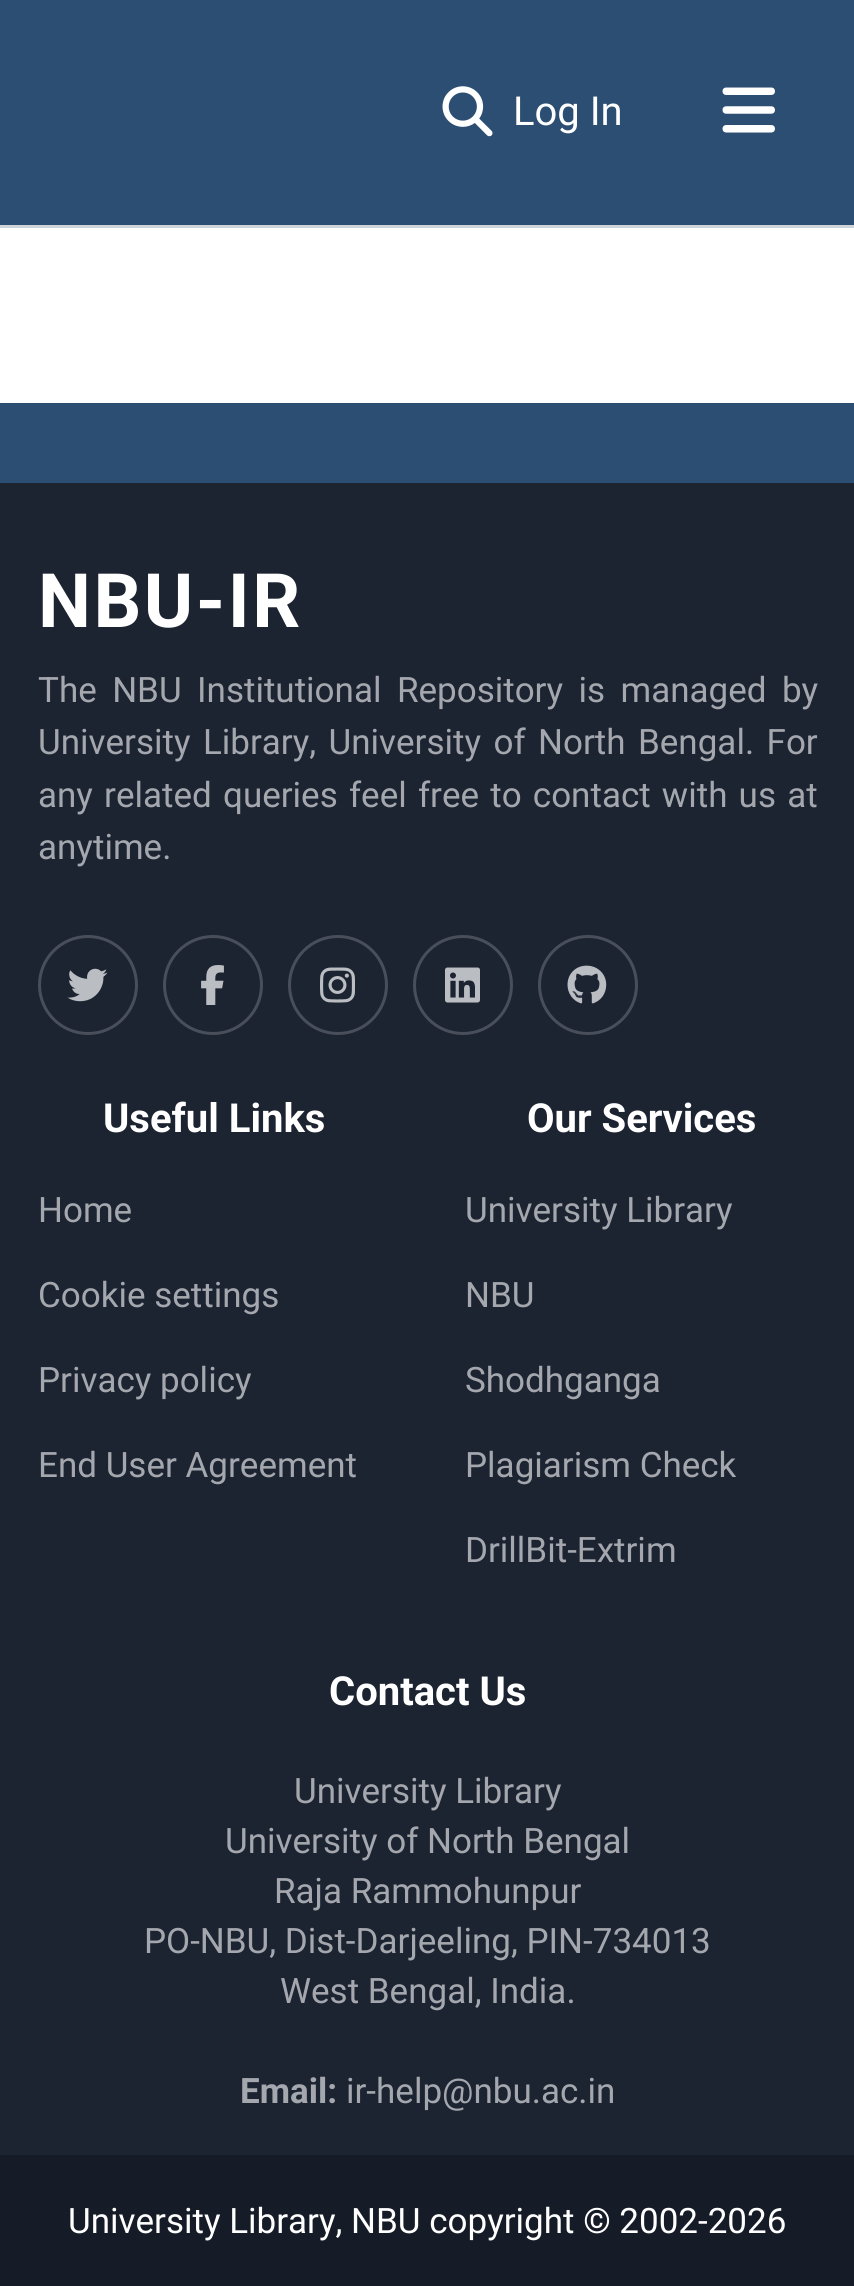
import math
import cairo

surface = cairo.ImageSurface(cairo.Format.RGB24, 854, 2286)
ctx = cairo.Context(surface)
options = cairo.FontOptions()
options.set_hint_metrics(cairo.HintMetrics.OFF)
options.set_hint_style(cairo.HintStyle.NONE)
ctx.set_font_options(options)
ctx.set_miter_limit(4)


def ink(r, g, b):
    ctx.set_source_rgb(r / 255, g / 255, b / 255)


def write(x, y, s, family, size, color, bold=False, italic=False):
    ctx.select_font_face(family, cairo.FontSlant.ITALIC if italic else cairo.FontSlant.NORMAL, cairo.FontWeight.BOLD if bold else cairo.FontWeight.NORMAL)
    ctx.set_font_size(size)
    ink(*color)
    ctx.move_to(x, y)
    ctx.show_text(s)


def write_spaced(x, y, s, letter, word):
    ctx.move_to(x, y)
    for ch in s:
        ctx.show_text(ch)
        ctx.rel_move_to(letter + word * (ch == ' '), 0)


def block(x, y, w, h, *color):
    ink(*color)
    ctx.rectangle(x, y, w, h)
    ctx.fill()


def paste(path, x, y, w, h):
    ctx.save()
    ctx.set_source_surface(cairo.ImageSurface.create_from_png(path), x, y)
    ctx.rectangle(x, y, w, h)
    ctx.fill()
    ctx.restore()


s1 = dict(family="Roboto", size=40, color=(255, 255, 255))
s2 = dict(family="Roboto", size=35, color=(164, 167, 173))
s3 = dict(family="Roboto", size=40, color=(255, 255, 255), bold=True)
s4 = dict(family="Roboto", size=35, color=(164, 167, 173), bold=True)
s5 = dict(family="Roboto", size=35, color=(255, 255, 255))

ink(255, 255, 255)
ctx.paint()
block(0, 225, 854, 3, 206, 212, 218)
block(0, 0, 854, 225, 43, 78, 114)
paste("pic1.png", 442, 86, 51, 51)
write(513, 125, "Log In", **s1)
paste("pic2.png", 722, 87, 53, 46)
block(0, 483, 854, 1672, 28, 35, 49)
block(0, 403, 854, 80, 43, 78, 114)
ctx.select_font_face("Roboto", cairo.FontSlant.NORMAL, cairo.FontWeight.BOLD)
ctx.set_font_size(75)
ink(255, 255, 255)
write_spaced(38, 627, "NBU-IR", 2.5, 0)
ctx.select_font_face("Roboto")
ctx.set_font_size(35)
ink(164, 167, 173)
write_spaced(38, 702, "The NBU Institutional Repository is managed by", 0, 6.75)
write_spaced(38, 754, "University Library, University of North Bengal. For", 0, 3.75)
write_spaced(38, 807, "any related queries feel free to contact with us at", 0, 2.5)
write(38, 859, "anytime.", **s2)
ctx.new_path()
ctx.arc(88, 985, 48.5, 0, 2 * math.pi)
ink(73, 79, 90)
ctx.set_line_width(3)
ctx.stroke()
paste("pic3.png", 67, 968, 41, 34)
ctx.arc(213, 985, 48.5, 0, 2 * math.pi)
ctx.stroke()
paste("pic4.png", 201, 965, 23, 40)
ctx.arc(338, 985, 48.5, 0, 2 * math.pi)
ctx.stroke()
paste("pic5.png", 320, 967, 35, 36)
ctx.arc(463, 985, 48.5, 0, 2 * math.pi)
ctx.stroke()
paste("pic6.png", 445, 967, 35, 36)
ctx.arc(588, 985, 48.5, 0, 2 * math.pi)
ctx.stroke()
paste("pic7.png", 567, 965, 40, 39)
write(103, 1132, "Useful Links", **s3)
write(38, 1222, "Home", **s2)
write(38, 1307, "Cookie settings", **s2)
write(38, 1392, "Privacy policy", **s2)
write(38, 1477, "End User Agreement", **s2)
write(527, 1132, "Our Services", **s3)
write(465, 1222, "University Library", **s2)
write(465, 1307, "NBU", **s2)
write(465, 1392, "Shodhganga", **s2)
write(465, 1477, "Plagiarism Check", **s2)
write(465, 1562, "DrillBit-Extrim", **s2)
write(329, 1705, "Contact Us", **s3)
write(294, 1803, "University Library", **s2)
write(225, 1853, "University of North Bengal", **s2)
write(274, 1903, "Raja Rammohunpur", **s2)
write(144, 1953, "PO-NBU, Dist-Darjeeling, PIN-734013", **s2)
write(280, 2003, "West Bengal, India.", **s2)
write(240, 2103, "Email:", **s4)
write(346, 2103, "ir-help@nbu.ac.in", **s2)
block(0, 2155, 854, 131, 22, 28, 39)
write(68, 2233, "University Library, NBU copyright © 2002-2026", **s5)
surface.write_to_png("screenshot.png")
